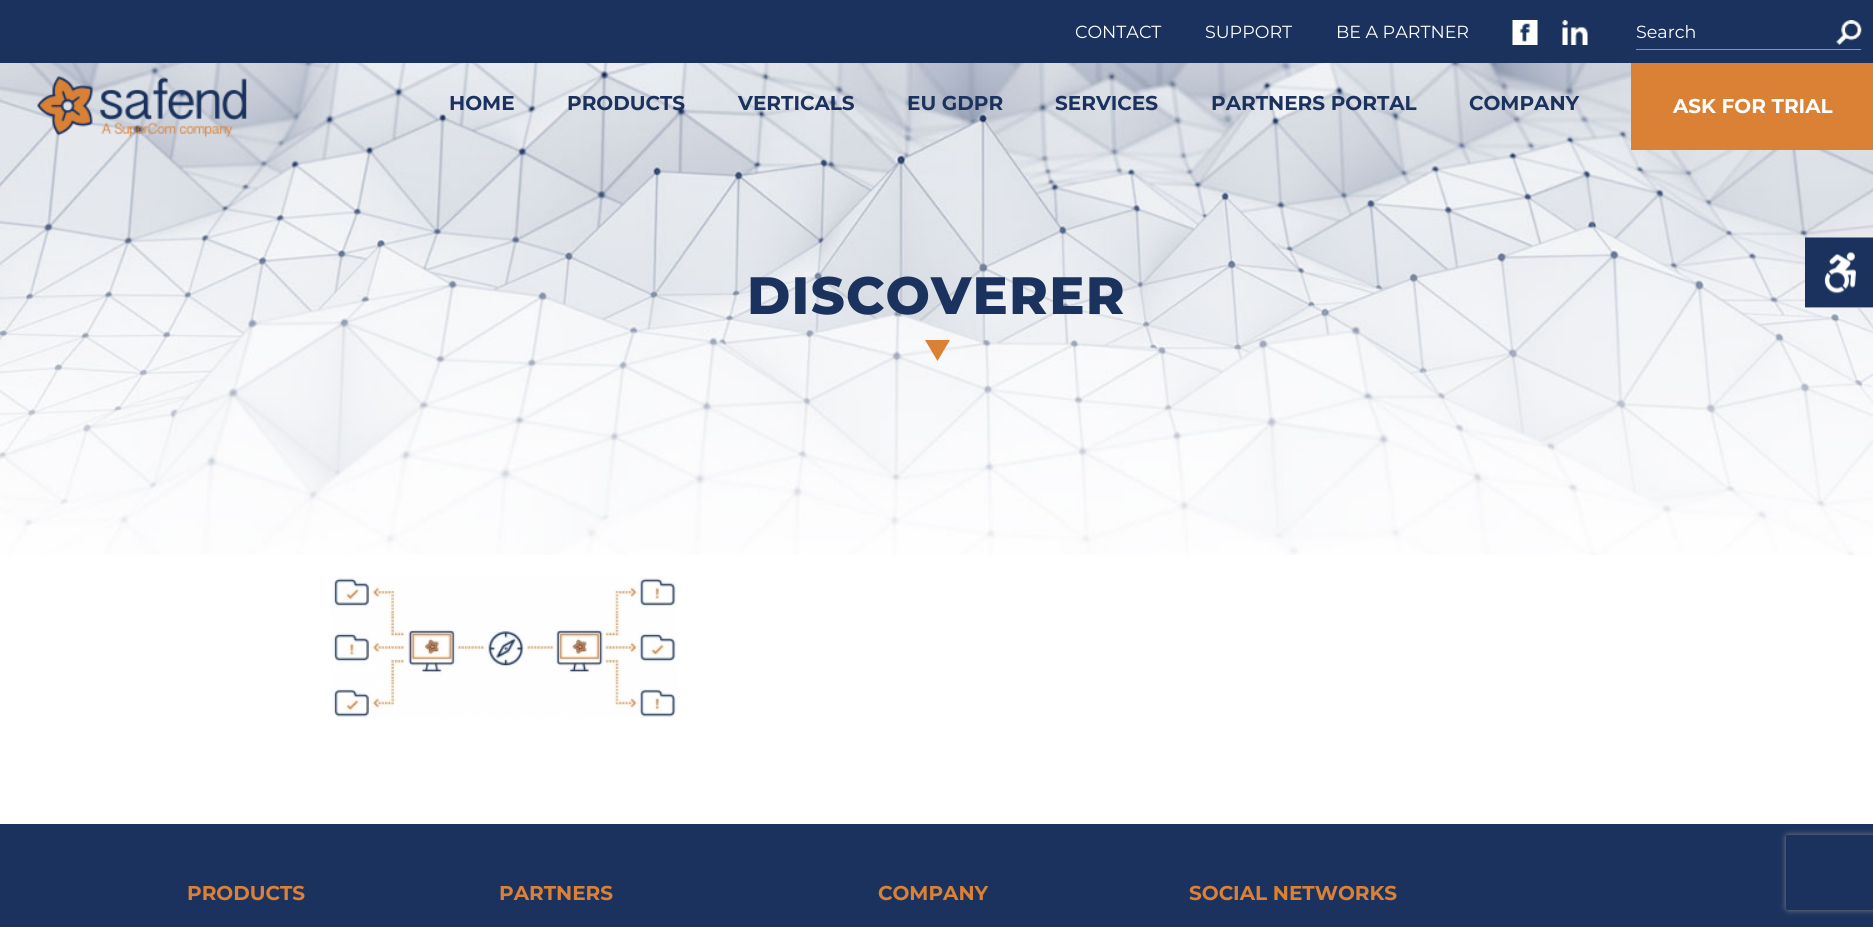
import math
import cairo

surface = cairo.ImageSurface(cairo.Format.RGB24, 1873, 927)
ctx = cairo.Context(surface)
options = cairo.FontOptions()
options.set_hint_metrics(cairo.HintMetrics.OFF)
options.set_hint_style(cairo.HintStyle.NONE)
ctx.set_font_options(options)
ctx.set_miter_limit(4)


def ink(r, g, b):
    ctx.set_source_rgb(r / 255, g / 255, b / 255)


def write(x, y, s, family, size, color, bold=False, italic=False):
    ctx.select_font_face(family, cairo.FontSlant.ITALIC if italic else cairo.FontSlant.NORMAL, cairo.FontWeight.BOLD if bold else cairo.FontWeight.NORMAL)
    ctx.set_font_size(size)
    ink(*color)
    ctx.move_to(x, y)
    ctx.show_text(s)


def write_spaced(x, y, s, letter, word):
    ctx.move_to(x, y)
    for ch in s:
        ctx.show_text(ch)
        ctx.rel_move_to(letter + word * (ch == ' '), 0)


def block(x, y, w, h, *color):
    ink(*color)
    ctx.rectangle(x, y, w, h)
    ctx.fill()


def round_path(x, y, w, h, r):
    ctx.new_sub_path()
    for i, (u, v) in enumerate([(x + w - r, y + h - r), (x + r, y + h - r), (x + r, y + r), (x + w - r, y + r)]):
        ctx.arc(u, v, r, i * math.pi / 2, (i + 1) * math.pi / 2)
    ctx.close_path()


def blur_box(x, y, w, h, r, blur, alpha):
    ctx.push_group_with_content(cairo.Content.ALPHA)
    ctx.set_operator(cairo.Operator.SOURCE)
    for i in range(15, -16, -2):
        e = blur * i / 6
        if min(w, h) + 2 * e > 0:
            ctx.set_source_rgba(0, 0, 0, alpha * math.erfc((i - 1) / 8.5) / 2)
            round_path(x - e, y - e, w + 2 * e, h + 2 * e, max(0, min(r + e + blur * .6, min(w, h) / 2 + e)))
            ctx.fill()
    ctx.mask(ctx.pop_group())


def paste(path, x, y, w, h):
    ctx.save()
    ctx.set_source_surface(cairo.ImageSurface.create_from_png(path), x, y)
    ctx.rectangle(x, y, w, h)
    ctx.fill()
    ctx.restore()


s1 = dict(family="Montserrat", size=17.5, color=(255, 255, 255))
s2 = dict(family="Montserrat", size=20, color=(27, 50, 94), bold=True)
s3 = dict(family="Montserrat", size=20, color=(255, 255, 255), bold=True)
s4 = dict(family="Montserrat", size=20, color=(218, 129, 54), bold=True)

ink(255, 255, 255)
ctx.paint()
paste("pic1.png", 0, 63, 1873, 492)
block(0, 0, 1873, 63, 27, 50, 94)
write(1075, 38, "CONTACT", **s1)
write(1205, 38, "SUPPORT", **s1)
write(1336, 38, "BE A PARTNER", **s1)
paste("pic2.png", 1512, 20, 26, 25)
paste("pic3.png", 1562, 20, 26, 25)
block(1636, 49, 225, 1, 218, 129, 54)
write(1636, 38, "Search", **s1)
paste("pic4.png", 1836, 20, 26, 25)
paste("pic5.png", 37, 76, 210, 62)
write(449, 110, "HOME", **s2)
write(567, 110, "PRODUCTS", **s2)
write(738, 110, "VERTICALS", **s2)
write(907, 110, "EU GDPR", **s2)
write(1055, 110, "SERVICES", **s2)
write(1211, 110, "PARTNERS PORTAL", **s2)
write(1469, 110, "COMPANY", **s2)
block(1631, 63, 242, 87, 218, 129, 54)
write(1673, 113, "ASK FOR TRIAL", **s3)
ctx.select_font_face("Montserrat ExtraBold")
ctx.set_font_size(52.5)
ink(27, 50, 94)
write_spaced(747, 314, "DISCOVERER", 1.25, 0)
ink(218, 129, 54)
ctx.new_path()
ctx.move_to(925, 340)
ctx.line_to(950, 340)
ctx.line_to(937.5, 361)
ctx.close_path()
ctx.fill()
paste("pic6.png", 331, 577, 346, 141)
block(0, 824, 1873, 103, 27, 50, 94)
write(187, 900, "PRODUCTS", **s4)
write(499, 900, "PARTNERS", **s4)
write(878, 900, "COMPANY", **s4)
write(1189, 900, "SOCIAL NETWORKS", **s4)
block(1805, 307, 68, 1, 255, 255, 255)
paste("pic7.png", 1805, 237, 68, 71)
ctx.save()
ctx.set_fill_rule(cairo.FillRule.EVEN_ODD)
ctx.new_path()
ctx.move_to(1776, 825)
ctx.line_to(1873, 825)
ctx.line_to(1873, 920)
ctx.line_to(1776, 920)
ctx.close_path()
ctx.move_to(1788.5, 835)
ctx.line_to(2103.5, 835)
ctx.curve_to(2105, 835, 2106, 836, 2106, 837.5)
ctx.line_to(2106, 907.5)
ctx.curve_to(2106, 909, 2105, 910, 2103.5, 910)
ctx.line_to(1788.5, 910)
ctx.curve_to(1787, 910, 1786, 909, 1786, 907.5)
ctx.line_to(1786, 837.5)
ctx.curve_to(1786, 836, 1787, 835, 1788.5, 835)
ctx.close_path()
ctx.clip()
ink(128, 128, 128)
blur_box(1786, 835, 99, 75, 2.5, 3, 1)
ctx.restore()
surface.write_to_png("screenshot.png")
